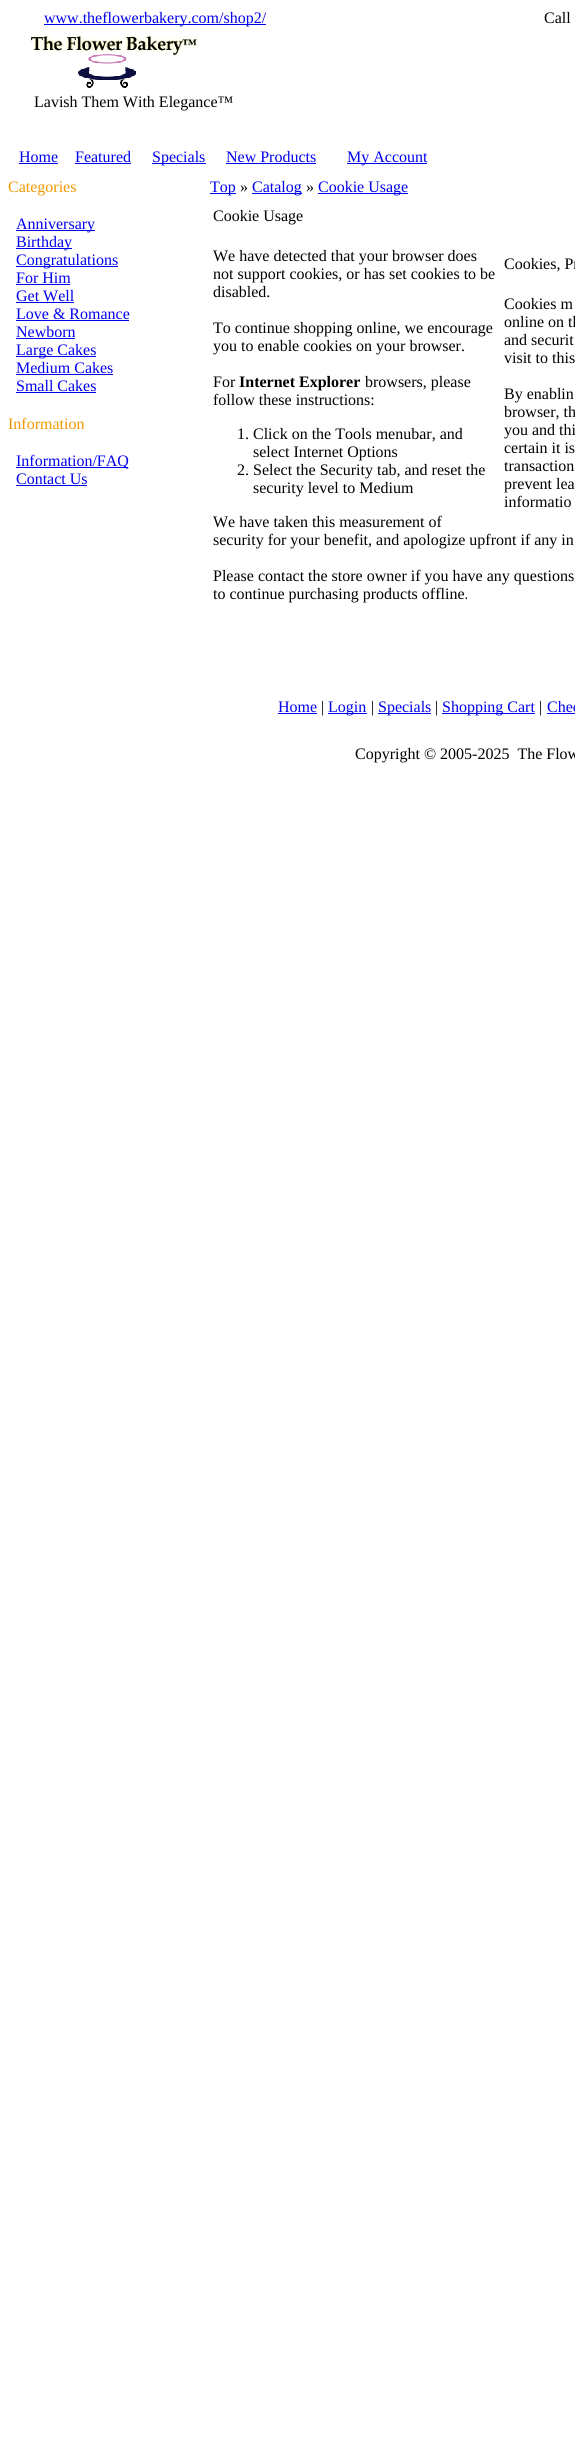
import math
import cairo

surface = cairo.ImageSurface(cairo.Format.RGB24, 575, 2448)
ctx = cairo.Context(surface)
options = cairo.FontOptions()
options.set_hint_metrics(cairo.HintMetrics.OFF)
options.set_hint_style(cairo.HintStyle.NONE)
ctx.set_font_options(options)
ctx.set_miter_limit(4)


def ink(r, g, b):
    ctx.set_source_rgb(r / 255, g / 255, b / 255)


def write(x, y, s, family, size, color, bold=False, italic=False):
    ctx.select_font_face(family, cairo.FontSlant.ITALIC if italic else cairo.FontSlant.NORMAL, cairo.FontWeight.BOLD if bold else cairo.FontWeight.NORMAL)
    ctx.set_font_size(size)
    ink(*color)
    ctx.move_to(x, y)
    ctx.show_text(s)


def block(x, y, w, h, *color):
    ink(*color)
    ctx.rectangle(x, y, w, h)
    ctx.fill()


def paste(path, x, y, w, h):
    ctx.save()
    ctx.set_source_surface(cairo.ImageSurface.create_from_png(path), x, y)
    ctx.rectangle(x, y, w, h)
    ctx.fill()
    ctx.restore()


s1 = dict(family="Liberation Serif", size=16, color=(0, 0, 238))
s2 = dict(family="Liberation Serif", size=16, color=(0, 0, 0))
s3 = dict(family="Liberation Serif", size=16, color=(243, 152, 0))
s4 = dict(family="Liberation Serif", size=16, color=(0, 0, 0), bold=True)

ink(255, 255, 255)
ctx.paint()
block(44, 24, 222, 1, 0, 0, 238)
write(44, 23, "www.theflowerbakery.com/shop2/", **s1)
write(544, 23, "Call", **s2)
paste("pic1.png", 21, 34, 178, 54)
write(34, 107, "Lavish Them With Elegance™", **s2)
write(19, 162, "Home", **s1)
block(19, 163, 39, 1, 0, 0, 238)
write(75, 162, "Featured", **s1)
block(75, 163, 56, 1, 0, 0, 238)
block(152, 163, 54, 1, 0, 0, 238)
write(152, 162, "Specials", **s1)
write(226, 162, "New Products", **s1)
block(226, 163, 90, 1, 0, 0, 238)
block(347, 163, 80, 1, 0, 0, 238)
write(347, 162, "My Account", **s1)
write(8, 192, "Categories", **s3)
block(16, 230, 79, 1, 0, 0, 238)
write(16, 229, "Anniversary", **s1)
block(16, 248, 56, 1, 0, 0, 238)
write(16, 247, "Birthday", **s1)
block(16, 266, 102, 1, 0, 0, 238)
write(16, 265, "Congratulations", **s1)
write(16, 283, "For Him", **s1)
block(16, 284, 54, 1, 0, 0, 238)
write(16, 301, "Get Well", **s1)
block(16, 302, 58, 1, 0, 0, 238)
write(16, 319, "Love & Romance", **s1)
block(16, 320, 113, 1, 0, 0, 238)
write(16, 337, "Newborn", **s1)
block(16, 338, 59, 1, 0, 0, 238)
block(16, 356, 80, 1, 0, 0, 238)
write(16, 355, "Large Cakes", **s1)
write(16, 373, "Medium Cakes", **s1)
block(16, 374, 97, 1, 0, 0, 238)
write(16, 391, "Small Cakes", **s1)
block(16, 392, 80, 1, 0, 0, 238)
write(8, 429, "Information", **s3)
block(16, 467, 112, 1, 0, 0, 238)
write(16, 466, "Information/FAQ", **s1)
write(16, 484, "Contact Us", **s1)
block(16, 485, 71, 1, 0, 0, 238)
block(210, 193, 26, 1, 0, 0, 238)
write(210, 192, "Top", **s1)
write(240, 192, "»", **s2)
block(252, 193, 50, 1, 0, 0, 238)
write(252, 192, "Catalog", **s1)
write(306, 192, "»", **s2)
block(318, 193, 90, 1, 0, 0, 238)
write(318, 192, "Cookie Usage", **s1)
write(213, 221, "Cookie Usage", **s2)
write(213, 261, "We have detected that your browser does", **s2)
write(504, 269, "Cookies, Pr", **s2)
write(504, 309, "Cookies m", **s2)
write(504, 327, "online on th", **s2)
write(504, 345, "and securit", **s2)
write(504, 363, "visit to this", **s2)
write(504, 399, "By enablin", **s2)
write(504, 417, "browser, th", **s2)
write(504, 435, "you and thi", **s2)
write(504, 453, "certain it is", **s2)
write(504, 471, "transaction", **s2)
write(504, 489, "prevent lea", **s2)
write(504, 507, "informatio", **s2)
write(213, 279, "not support cookies, or has set cookies to be", **s2)
write(213, 297, "disabled.", **s2)
write(213, 333, "To continue shopping online, we encourage", **s2)
write(213, 351, "you to enable cookies on your browser.", **s2)
write(213, 387, "For", **s2)
write(239, 387, "Internet Explorer", **s4)
write(365, 387, "browsers, please", **s2)
write(213, 405, "follow these instructions:", **s2)
write(237, 439, "1. Click on the Tools menubar, and", **s2)
write(253, 457, "select Internet Options", **s2)
write(237, 475, "2. Select the Security tab, and reset the", **s2)
write(253, 493, "security level to Medium", **s2)
write(213, 527, "We have taken this measurement of", **s2)
write(213, 545, "security for your benefit, and apologize upfront if any in", **s2)
write(213, 581, "Please contact the store owner if you have any questions", **s2)
write(213, 599, "to continue purchasing products offline.", **s2)
write(278, 712, "Home", **s1)
block(278, 713, 39, 1, 0, 0, 238)
write(321, 712, "|", **s2)
block(328, 713, 39, 1, 0, 0, 238)
write(328, 712, "Login", **s1)
write(371, 712, "|", **s2)
block(378, 713, 53, 1, 0, 0, 238)
write(378, 712, "Specials", **s1)
write(435, 712, "|", **s2)
block(442, 713, 93, 1, 0, 0, 238)
write(442, 712, "Shopping Cart", **s1)
write(539, 712, "|", **s2)
write(547, 712, "Chec", **s1)
block(547, 713, 28, 1, 0, 0, 238)
write(355, 759, "Copyright © 2005-2025  The Flow", **s2)
surface.write_to_png("screenshot.png")
